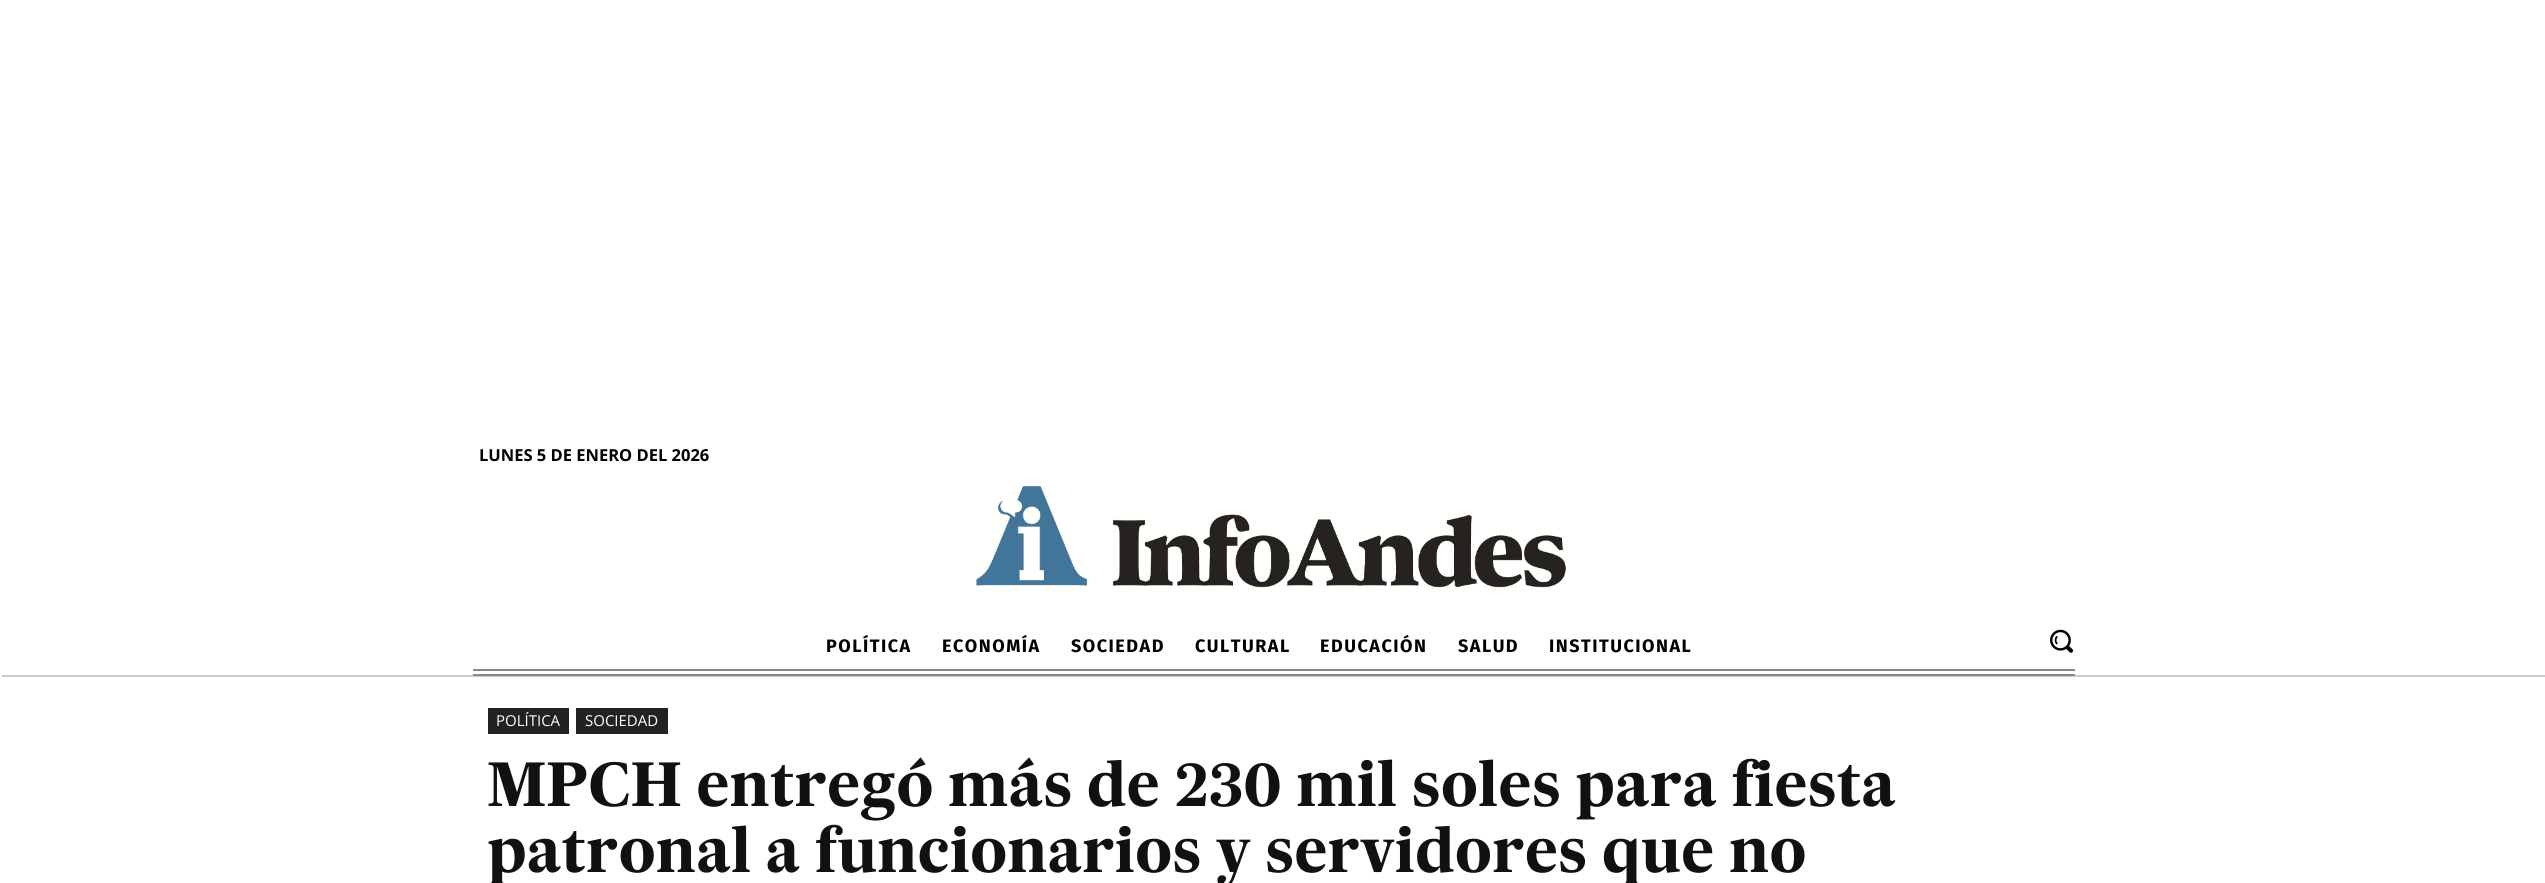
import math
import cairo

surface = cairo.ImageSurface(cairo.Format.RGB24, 2545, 883)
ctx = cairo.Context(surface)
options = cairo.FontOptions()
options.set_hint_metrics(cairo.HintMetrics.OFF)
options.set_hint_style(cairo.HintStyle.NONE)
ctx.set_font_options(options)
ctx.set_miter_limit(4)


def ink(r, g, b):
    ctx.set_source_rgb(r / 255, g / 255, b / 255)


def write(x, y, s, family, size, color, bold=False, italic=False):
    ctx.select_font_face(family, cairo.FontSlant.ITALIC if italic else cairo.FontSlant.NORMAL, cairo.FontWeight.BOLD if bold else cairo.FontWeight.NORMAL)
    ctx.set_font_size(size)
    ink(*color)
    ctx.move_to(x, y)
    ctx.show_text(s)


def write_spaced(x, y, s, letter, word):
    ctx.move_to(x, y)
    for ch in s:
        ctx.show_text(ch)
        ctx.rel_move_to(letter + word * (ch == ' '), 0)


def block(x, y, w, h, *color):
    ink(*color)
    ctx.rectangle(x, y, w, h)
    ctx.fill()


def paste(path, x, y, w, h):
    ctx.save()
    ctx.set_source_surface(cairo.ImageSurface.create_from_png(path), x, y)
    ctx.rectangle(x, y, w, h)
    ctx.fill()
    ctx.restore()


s1 = dict(family="Open Sans", size=16.5, color=(0, 0, 0), bold=True)
s2 = dict(family="Open Sans", size=15, color=(255, 255, 255))
s3 = dict(family="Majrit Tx", size=60, color=(17, 17, 17), bold=True)

ink(255, 255, 255)
ctx.paint()
write(479, 461, "LUNES 5 DE ENERO DEL 2026", **s1)
paste("pic1.png", 976, 486, 591, 102)
block(473, 669, 1602, 2, 136, 136, 136)
block(2, 675, 2543, 2, 204, 204, 204)
block(473, 674, 1602, 2, 136, 136, 136)
ctx.select_font_face("Fira Sans", cairo.FontSlant.NORMAL, cairo.FontWeight.BOLD)
ctx.set_font_size(18)
ink(0, 0, 0)
write_spaced(826, 652, "POLÍTICA", 1.5, 0)
write_spaced(942, 652, "ECONOMÍA", 1.5, 0)
write_spaced(1071, 652, "SOCIEDAD", 1.5, 0)
write_spaced(1195, 652, "CULTURAL", 1.5, 0)
write_spaced(1320, 652, "EDUCACIÓN", 1.5, 0)
write_spaced(1458, 652, "SALUD", 1.5, 0)
write_spaced(1549, 652, "INSTITUCIONAL", 1.5, 0)
paste("pic2.png", 2050, 629, 23, 24)
block(488, 708, 81, 26, 34, 34, 34)
write(496, 726, "POLÍTICA", **s2)
block(576, 708, 92, 26, 34, 34, 34)
write(585, 726, "SOCIEDAD", **s2)
write(487, 806, "MPCH entregó más de 230 mil soles para fiesta", **s3)
write(487, 872, "patronal a funcionarios y servidores que no", **s3)
surface.write_to_png("screenshot.png")
